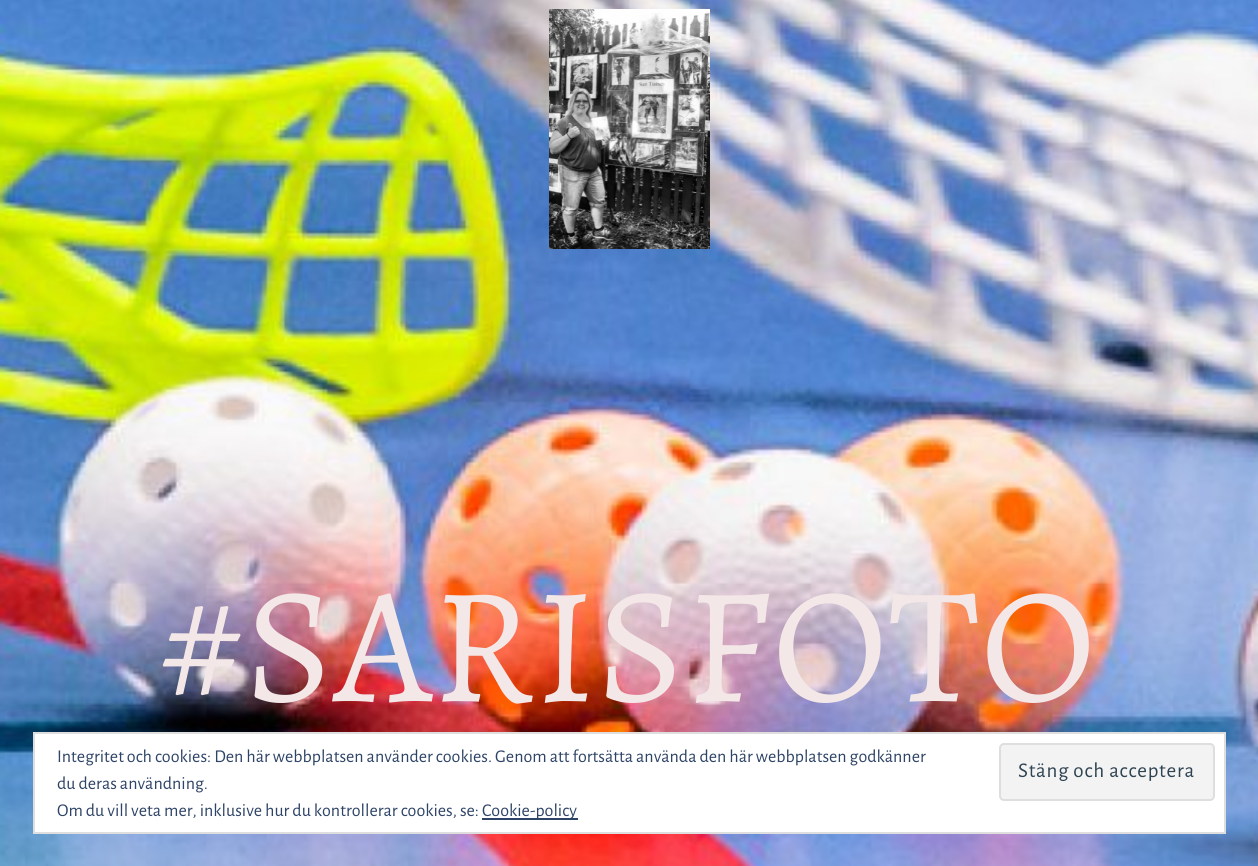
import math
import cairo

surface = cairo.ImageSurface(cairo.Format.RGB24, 1258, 866)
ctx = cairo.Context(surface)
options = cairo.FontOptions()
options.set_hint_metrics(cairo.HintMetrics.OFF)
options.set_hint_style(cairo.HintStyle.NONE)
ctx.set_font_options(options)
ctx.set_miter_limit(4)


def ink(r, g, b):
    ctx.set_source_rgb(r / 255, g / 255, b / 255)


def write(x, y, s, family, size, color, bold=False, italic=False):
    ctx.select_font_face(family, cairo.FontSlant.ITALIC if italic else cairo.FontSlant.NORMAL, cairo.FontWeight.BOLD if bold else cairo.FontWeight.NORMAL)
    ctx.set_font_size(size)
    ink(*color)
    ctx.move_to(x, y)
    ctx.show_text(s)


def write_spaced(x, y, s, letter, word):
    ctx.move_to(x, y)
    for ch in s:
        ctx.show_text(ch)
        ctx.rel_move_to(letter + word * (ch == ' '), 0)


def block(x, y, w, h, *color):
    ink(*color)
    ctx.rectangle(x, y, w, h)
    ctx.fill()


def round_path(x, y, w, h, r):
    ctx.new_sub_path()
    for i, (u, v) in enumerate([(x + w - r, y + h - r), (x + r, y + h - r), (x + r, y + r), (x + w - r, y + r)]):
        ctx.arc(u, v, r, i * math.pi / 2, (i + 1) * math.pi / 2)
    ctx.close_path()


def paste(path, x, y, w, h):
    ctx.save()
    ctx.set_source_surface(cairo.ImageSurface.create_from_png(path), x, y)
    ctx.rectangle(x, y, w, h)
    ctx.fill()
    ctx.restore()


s1 = dict(family="Alegreya Sans", size=18, color=(46, 68, 103))

ink(255, 255, 255)
ctx.paint()
paste("pic1.png", 0, 0, 1258, 866)
paste("pic2.png", 549, 9, 161, 240)
ctx.select_font_face("Alegreya")
ctx.set_font_size(165.75)
ink(244, 231, 232)
write_spaced(161, 701, "#SARISFOTO", 1.5, 0)
ink(255, 255, 255)
ctx.rectangle(34, 733, 1191, 100)
ctx.fill_preserve()
ink(222, 222, 222)
ctx.stroke()
write(57, 762, "Integritet och cookies: Den här webbplatsen använder cookies. Genom att fortsätta använda den här webbplatsen godkänner", **s1)
ink(243, 243, 243)
round_path(1000, 744, 214, 56, 4)
ctx.fill_preserve()
ink(222, 222, 222)
ctx.stroke()
ctx.set_font_size(21)
ink(46, 68, 83)
write_spaced(1018, 777, "Stäng och acceptera", 0.75, 0)
write(57, 789, "du deras användning.", **s1)
write(57, 816, "Om du vill veta mer, inklusive hur du kontrollerar cookies, se:", **s1)
block(482, 818, 96, 2, 46, 68, 103)
write(482, 816, "Cookie-policy", **s1)
surface.write_to_png("screenshot.png")
